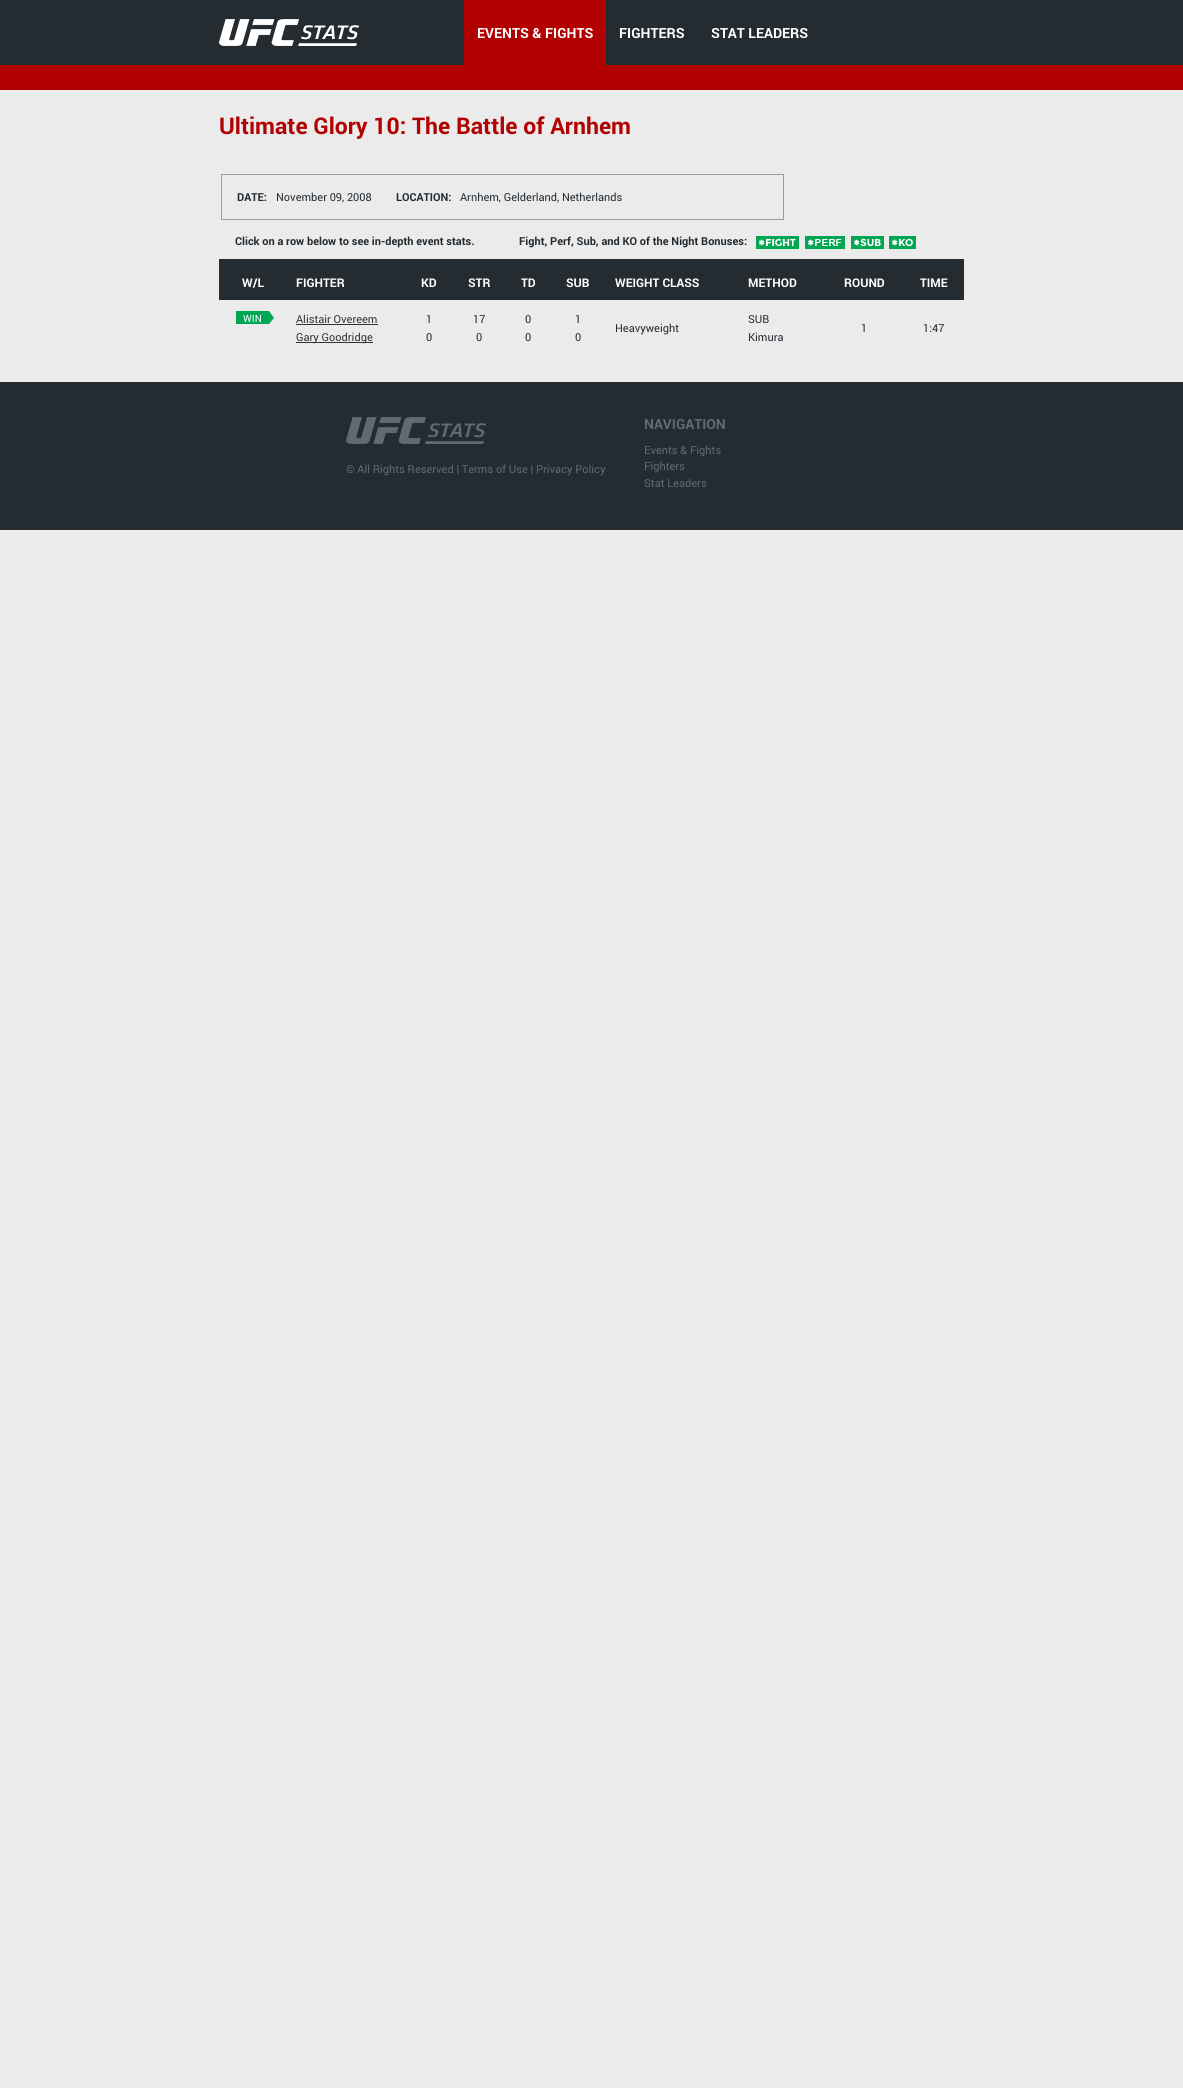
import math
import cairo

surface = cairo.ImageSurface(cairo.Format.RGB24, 1183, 2088)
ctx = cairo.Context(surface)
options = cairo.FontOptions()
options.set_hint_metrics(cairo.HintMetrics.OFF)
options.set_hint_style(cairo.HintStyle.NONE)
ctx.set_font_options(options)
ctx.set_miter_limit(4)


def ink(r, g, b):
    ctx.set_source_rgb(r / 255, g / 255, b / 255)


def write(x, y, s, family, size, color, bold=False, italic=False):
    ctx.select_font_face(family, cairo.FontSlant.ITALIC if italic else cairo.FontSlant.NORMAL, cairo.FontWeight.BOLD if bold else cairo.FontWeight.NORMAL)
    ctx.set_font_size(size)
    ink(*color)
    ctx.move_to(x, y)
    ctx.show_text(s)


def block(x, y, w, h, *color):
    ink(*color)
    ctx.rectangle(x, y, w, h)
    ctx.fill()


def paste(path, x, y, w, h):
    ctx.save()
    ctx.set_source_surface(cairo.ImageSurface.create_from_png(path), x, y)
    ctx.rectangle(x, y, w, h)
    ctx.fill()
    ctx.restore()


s1 = dict(family="Roboto", size=14, color=(255, 255, 255), bold=True)
s2 = dict(family="Roboto", size=23, color=(177, 1, 1), bold=True)
s3 = dict(family="Roboto", size=11, color=(35, 43, 49), bold=True)
s4 = dict(family="Roboto", size=11, color=(35, 43, 49))
s5 = dict(family="Roboto", size=12, color=(255, 255, 255), bold=True)
s6 = dict(family="Roboto", size=10, color=(255, 255, 255))
s7 = dict(family="Roboto", size=11, color=(51, 51, 51))
s8 = dict(family="Roboto", size=11, color=(97, 107, 117))
s9 = dict(family="Roboto", size=14, color=(97, 107, 117), bold=True)

ink(235, 235, 235)
ctx.paint()
block(0, 0, 1183, 65, 36, 43, 49)
paste("pic1.png", 219, 19, 140, 27)
block(464, 0, 142, 65, 178, 1, 1)
write(477, 38, "EVENTS & FIGHTS", **s1)
write(619, 38, "FIGHTERS", **s1)
write(711, 38, "STAT LEADERS", **s1)
block(0, 65, 1183, 25, 178, 1, 1)
write(219, 134, "Ultimate Glory 10: The Battle of Arnhem", **s2)
ctx.rectangle(221.5, 174.5, 562, 45)
ink(155, 158, 161)
ctx.set_line_width(1)
ctx.stroke()
write(237, 201, "DATE:", **s3)
write(276, 201, "November 09, 2008", **s4)
write(396, 201, "LOCATION:", **s3)
write(460, 201, "Arnhem, Gelderland, Netherlands", **s4)
write(235, 245, "Click on a row below to see in-depth event stats.", **s3)
write(519, 245, "Fight, Perf, Sub, and KO of the Night Bonuses:", **s3)
paste("pic2.png", 756, 236, 43, 13)
paste("pic3.png", 805, 236, 40, 13)
paste("pic4.png", 851, 236, 33, 13)
paste("pic5.png", 889, 236, 27, 13)
block(219, 259, 745, 41, 36, 43, 49)
write(242, 287, "W/L", **s5)
write(296, 287, "FIGHTER", **s5)
write(421, 287, "KD", **s5)
write(468, 287, "STR", **s5)
write(521, 287, "TD", **s5)
write(566, 287, "SUB", **s5)
write(615, 287, "WEIGHT CLASS", **s5)
write(748, 287, "METHOD", **s5)
write(844, 287, "ROUND", **s5)
write(920, 287, "TIME", **s5)
block(236, 311, 33, 13, 0, 166, 81)
write(243, 322, "WIN", **s6)
ink(0, 166, 81)
ctx.new_path()
ctx.move_to(269, 324)
ctx.line_to(269, 311)
ctx.line_to(274, 318)
ctx.close_path()
ctx.fill()
write(296, 323, "Alistair Overeem", **s7)
block(296, 324, 82, 1, 51, 51, 51)
block(296, 342, 77, 1, 51, 51, 51)
write(296, 341, "Gary Goodridge", **s7)
write(426, 323, "1", **s4)
write(426, 341, "0", **s4)
write(473, 323, "17", **s4)
write(476, 341, "0", **s4)
write(525, 323, "0", **s4)
write(525, 341, "0", **s4)
write(575, 323, "1", **s4)
write(575, 341, "0", **s4)
write(615, 332, "Heavyweight", **s4)
write(748, 323, "SUB", **s4)
write(748, 341, "Kimura", **s4)
write(861, 332, "1", **s4)
write(923, 332, "1:47", **s4)
block(0, 382, 1183, 148, 36, 43, 49)
paste("pic6.png", 346, 417, 140, 27)
write(346, 473, "© All Rights Reserved | Terms of Use | Privacy Policy", **s8)
write(644, 429, "NAVIGATION", **s9)
write(644, 454, "Events & Fights", **s8)
write(644, 470, "Fighters", **s8)
write(644, 487, "Stat Leaders", **s8)
surface.write_to_png("screenshot.png")
